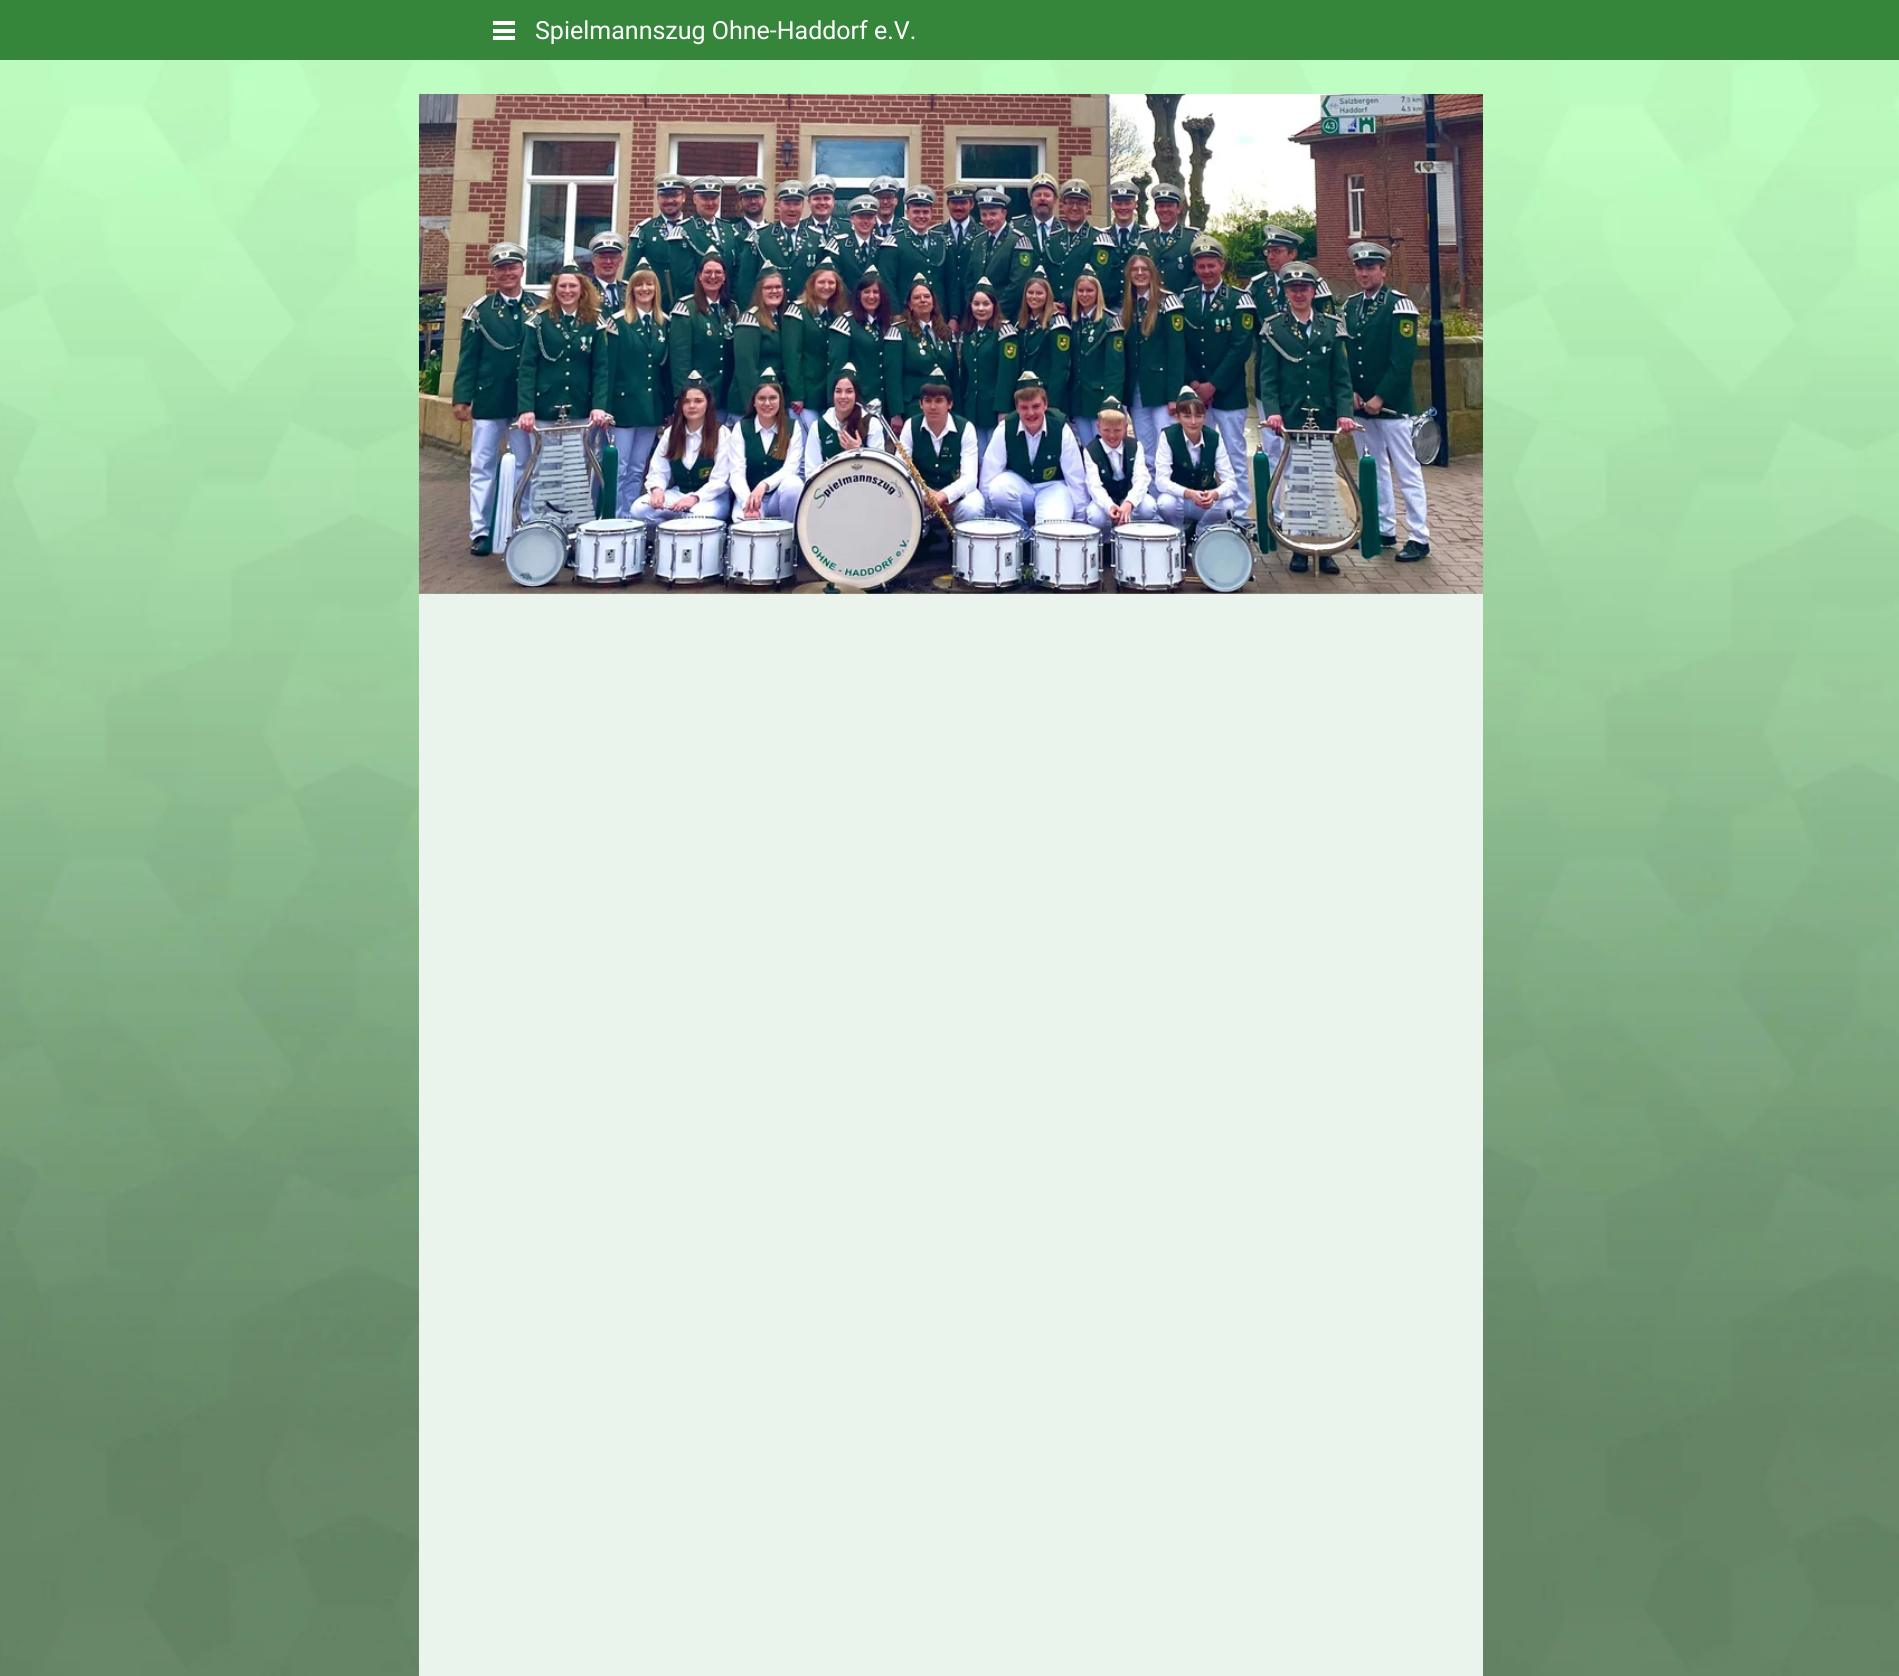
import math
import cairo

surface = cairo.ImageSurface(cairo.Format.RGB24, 1899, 1676)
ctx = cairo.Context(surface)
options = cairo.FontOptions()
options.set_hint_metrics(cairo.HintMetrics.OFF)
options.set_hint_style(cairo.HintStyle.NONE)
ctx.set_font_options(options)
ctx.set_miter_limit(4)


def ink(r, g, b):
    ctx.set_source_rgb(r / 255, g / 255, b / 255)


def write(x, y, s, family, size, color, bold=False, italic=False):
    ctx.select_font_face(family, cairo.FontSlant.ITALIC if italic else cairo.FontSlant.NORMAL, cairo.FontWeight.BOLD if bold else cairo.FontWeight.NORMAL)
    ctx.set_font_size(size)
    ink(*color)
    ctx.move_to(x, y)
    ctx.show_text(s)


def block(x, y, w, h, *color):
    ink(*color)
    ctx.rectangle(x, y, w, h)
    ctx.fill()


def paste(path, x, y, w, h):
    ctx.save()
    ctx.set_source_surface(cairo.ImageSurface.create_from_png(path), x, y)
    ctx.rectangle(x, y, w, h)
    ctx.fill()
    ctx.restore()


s1 = dict(family="Roboto", size=25, color=(255, 255, 255))

ink(255, 255, 255)
ctx.paint()
block(0, 0, 1899, 60, 53, 134, 58)
block(493, 21, 22, 4, 255, 255, 255)
block(493, 29, 22, 4, 255, 255, 255)
block(493, 36, 22, 4, 255, 255, 255)
write(535, 39, "Spielmannszug Ohne-Haddorf e.V.", **s1)
paste("pic2.png", 0, 60, 1899, 1616)
paste("pic1.png", 419, 94, 1064, 500)
block(419, 594, 1064, 1082, 235, 244, 236)
surface.write_to_png("screenshot.png")
